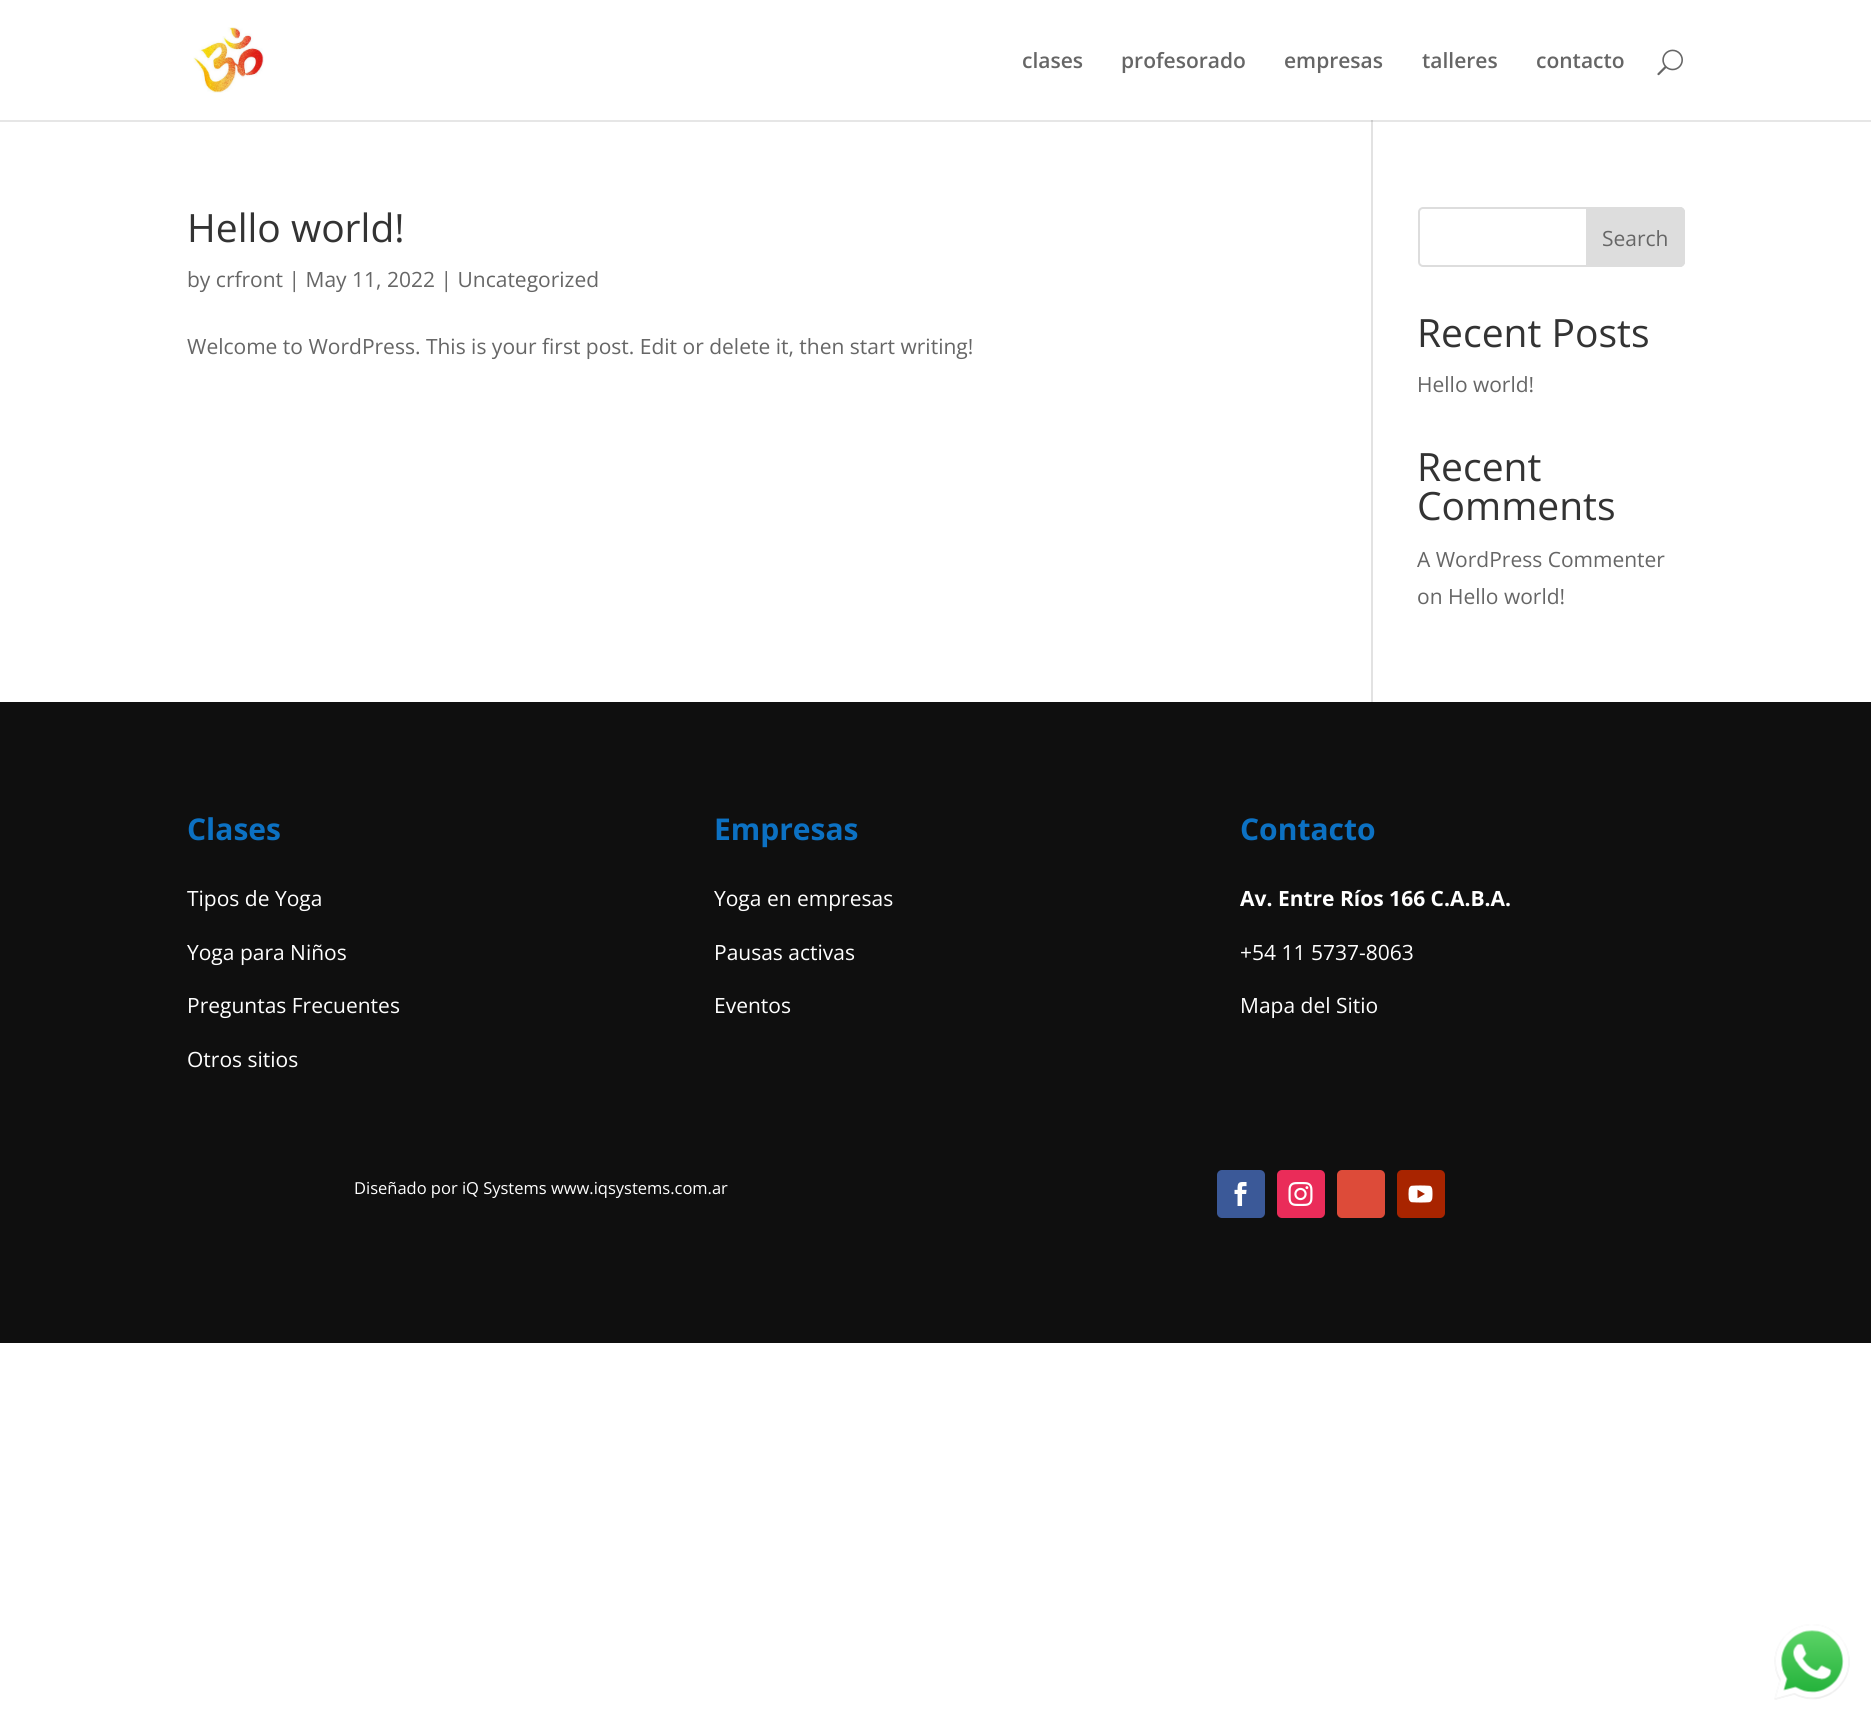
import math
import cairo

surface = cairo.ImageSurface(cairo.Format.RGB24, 1871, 1721)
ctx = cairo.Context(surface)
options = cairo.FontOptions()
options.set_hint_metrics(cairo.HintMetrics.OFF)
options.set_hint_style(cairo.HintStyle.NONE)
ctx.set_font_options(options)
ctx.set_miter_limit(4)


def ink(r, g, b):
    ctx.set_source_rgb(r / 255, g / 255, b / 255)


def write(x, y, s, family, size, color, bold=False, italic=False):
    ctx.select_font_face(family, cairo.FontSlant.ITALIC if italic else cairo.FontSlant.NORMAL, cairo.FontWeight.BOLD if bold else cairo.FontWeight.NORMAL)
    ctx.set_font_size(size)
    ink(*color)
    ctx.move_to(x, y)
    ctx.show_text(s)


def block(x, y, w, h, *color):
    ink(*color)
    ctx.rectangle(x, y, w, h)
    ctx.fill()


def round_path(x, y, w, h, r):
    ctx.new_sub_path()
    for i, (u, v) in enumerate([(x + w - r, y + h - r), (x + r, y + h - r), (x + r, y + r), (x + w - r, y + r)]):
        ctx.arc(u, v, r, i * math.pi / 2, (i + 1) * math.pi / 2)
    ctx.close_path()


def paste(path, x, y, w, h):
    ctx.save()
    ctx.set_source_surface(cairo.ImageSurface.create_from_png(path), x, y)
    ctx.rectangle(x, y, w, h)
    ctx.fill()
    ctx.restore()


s1 = dict(family="Open Sans SemiBold", size=21, color=(102, 102, 102))
s2 = dict(family="Open Sans", size=39, color=(51, 51, 51))
s3 = dict(family="Open Sans", size=21, color=(102, 102, 102))
s4 = dict(family="Open Sans", size=30, color=(12, 113, 195), bold=True)
s5 = dict(family="Open Sans", size=21, color=(255, 255, 255))
s6 = dict(family="Open Sans", size=21, color=(255, 255, 255), bold=True)
s7 = dict(family="Open Sans", size=16.5, color=(255, 255, 255))

ink(255, 255, 255)
ctx.paint()
block(0, 120, 1871, 2, 230, 230, 230)
paste("pic1.png", 193, 27, 71, 66)
write(1022, 68, "clases", **s1)
write(1121, 68, "profesorado", **s1)
write(1284, 68, "empresas", **s1)
write(1422, 68, "talleres", **s1)
write(1536, 68, "contacto", **s1)
paste("pic2.png", 1657, 49, 26, 27)
block(1371, 120, 2, 582, 226, 226, 226)
block(1371, 120, 2, 2, 203, 203, 203)
write(187, 242, "Hello world!", **s2)
write(187, 287, "by crfront | May 11, 2022 | Uncategorized", **s3)
write(187, 354, "Welcome to WordPress. This is your first post. Edit or delete it, then start writing!", **s3)
round_path(1419, 208, 265, 58, 4)
ink(221, 221, 221)
ctx.stroke()
ctx.new_path()
ctx.move_to(1587, 208)
ctx.line_to(1680, 208)
ctx.curve_to(1682, 208, 1684, 210, 1684, 212)
ctx.line_to(1684, 262)
ctx.curve_to(1684, 264, 1682, 266, 1680, 266)
ctx.line_to(1587, 266)
ctx.close_path()
ctx.fill_preserve()
ctx.stroke()
write(1602, 246, "Search", **s3)
write(1417, 347, "Recent Posts", **s2)
write(1417, 392, "Hello world!", **s3)
write(1417, 481, "Recent", **s2)
write(1417, 520, "Comments", **s2)
write(1417, 567, "A WordPress Commenter", **s3)
write(1417, 604, "on Hello world!", **s3)
block(0, 702, 1871, 641, 15, 15, 15)
write(187, 840, "Clases", **s4)
write(187, 906, "Tipos de Yoga", **s5)
write(187, 960, "Yoga para Niños", **s5)
write(187, 1013, "Preguntas Frecuentes", **s5)
write(187, 1067, "Otros sitios", **s5)
write(714, 840, "Empresas", **s4)
write(714, 906, "Yoga en empresas", **s5)
write(714, 960, "Pausas activas", **s5)
write(714, 1013, "Eventos", **s5)
write(1240, 840, "Contacto", **s4)
write(1240, 906, "Av. Entre Ríos 166 C.A.B.A.", **s6)
write(1240, 960, "+54 11 5737-8063", **s5)
write(1240, 1013, "Mapa del Sitio", **s5)
write(354, 1194, "Diseñado por iQ Systems www.iqsystems.com.ar", **s7)
ink(59, 89, 152)
round_path(1217, 1170, 48, 48, 5)
ctx.fill()
paste("pic3.png", 1234, 1182, 13, 24)
ink(234, 44, 89)
round_path(1277, 1170, 48, 48, 5)
ctx.fill()
paste("pic4.png", 1288, 1182, 25, 24)
ink(221, 75, 57)
round_path(1337, 1170, 48, 48, 5)
ctx.fill()
ink(168, 36, 0)
round_path(1397, 1170, 48, 48, 5)
ctx.fill()
paste("pic5.png", 1408, 1185, 25, 18)
paste("pic6.png", 1774, 1624, 76, 76)
surface.write_to_png("screenshot.png")
